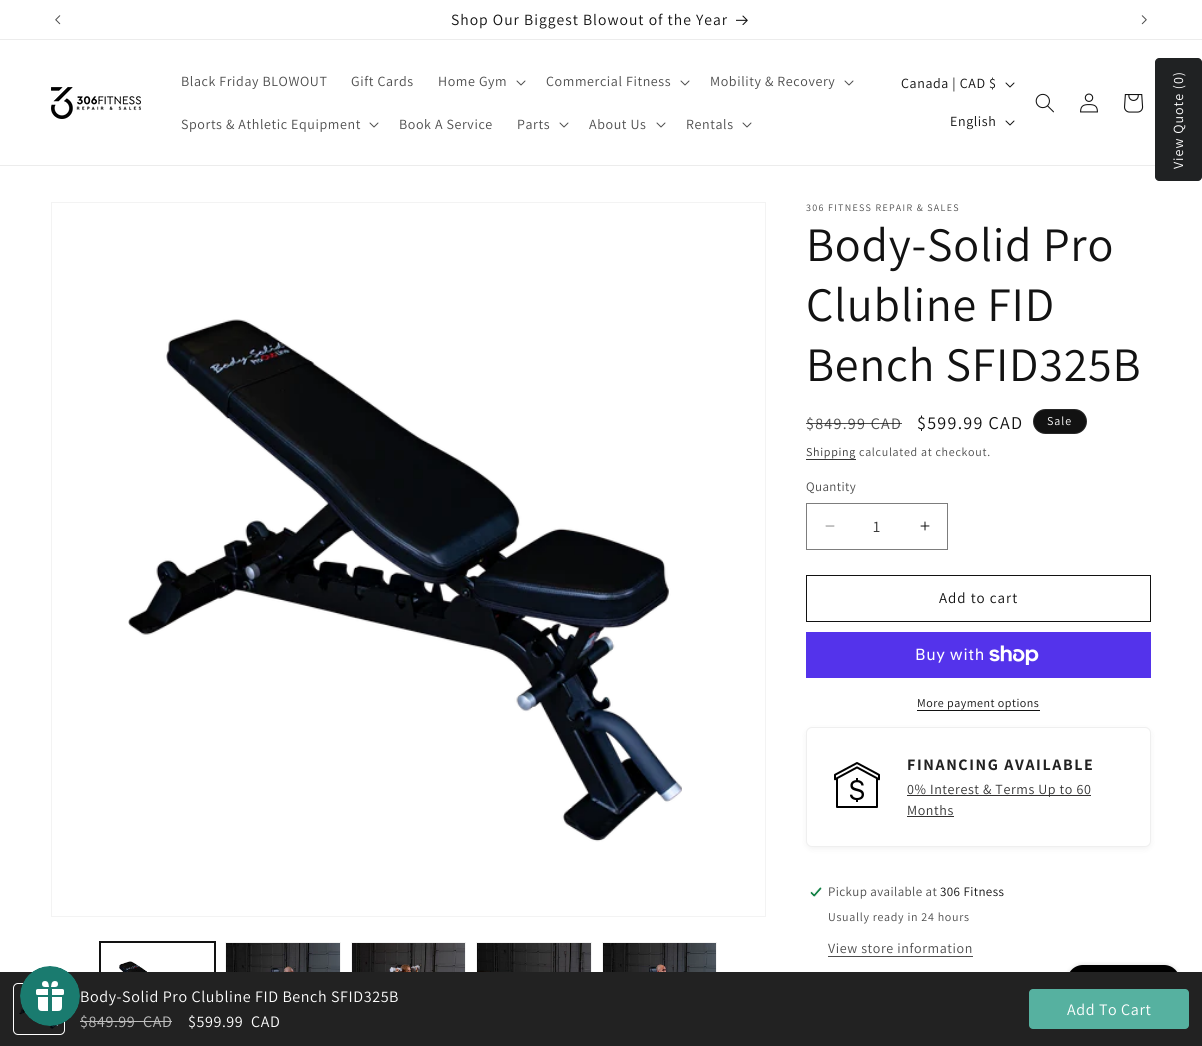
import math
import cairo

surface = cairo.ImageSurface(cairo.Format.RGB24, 1202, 1046)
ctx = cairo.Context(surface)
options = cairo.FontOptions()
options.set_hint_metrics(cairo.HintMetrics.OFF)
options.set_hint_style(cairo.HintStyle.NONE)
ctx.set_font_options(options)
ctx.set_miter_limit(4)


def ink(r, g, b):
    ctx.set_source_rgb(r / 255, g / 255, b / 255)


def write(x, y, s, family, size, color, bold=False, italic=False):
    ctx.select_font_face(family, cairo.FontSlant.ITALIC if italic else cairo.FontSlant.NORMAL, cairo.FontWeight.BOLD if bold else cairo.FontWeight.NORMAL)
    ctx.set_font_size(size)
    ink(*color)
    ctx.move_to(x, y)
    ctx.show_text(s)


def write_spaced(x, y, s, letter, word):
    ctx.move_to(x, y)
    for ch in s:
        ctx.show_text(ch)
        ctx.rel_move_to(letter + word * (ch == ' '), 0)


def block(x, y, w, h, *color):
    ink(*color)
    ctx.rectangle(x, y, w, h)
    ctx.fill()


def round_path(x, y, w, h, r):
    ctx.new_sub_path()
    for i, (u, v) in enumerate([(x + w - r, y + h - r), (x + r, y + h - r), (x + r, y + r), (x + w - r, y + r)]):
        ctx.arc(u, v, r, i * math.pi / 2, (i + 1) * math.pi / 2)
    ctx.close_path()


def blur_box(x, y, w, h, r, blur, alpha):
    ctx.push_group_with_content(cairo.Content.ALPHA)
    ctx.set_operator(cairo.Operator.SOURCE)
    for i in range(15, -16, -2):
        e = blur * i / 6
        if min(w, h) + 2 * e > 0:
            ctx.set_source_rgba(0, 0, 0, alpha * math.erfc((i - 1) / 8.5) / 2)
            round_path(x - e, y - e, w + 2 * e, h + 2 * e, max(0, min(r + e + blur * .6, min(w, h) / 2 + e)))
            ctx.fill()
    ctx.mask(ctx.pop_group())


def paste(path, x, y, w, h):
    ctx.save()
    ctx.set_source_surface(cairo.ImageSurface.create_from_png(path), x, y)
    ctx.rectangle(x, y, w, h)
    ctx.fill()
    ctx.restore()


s1 = dict(family="Assistant", size=16, color=(54, 54, 54))

ink(255, 255, 255)
ctx.paint()
block(0, 39, 1202, 1, 236, 236, 236)
paste("pic1.png", 55, 15, 6, 10)
ctx.select_font_face("Assistant")
ctx.set_font_size(15.6)
ink(18, 18, 18)
write_spaced(451, 25, "Shop Our Biggest Blowout of the Year", 1, 0)
paste("pic2.png", 736, 15, 12, 10)
paste("pic3.png", 1141, 15, 6, 10)
block(0, 165, 1155, 1, 236, 236, 236)
paste("pic4.png", 51, 87, 90, 32)
ctx.set_font_size(14)
ink(77, 77, 77)
write_spaced(181, 86, "Black Friday BLOWOUT", 0.6, 0)
write_spaced(351, 86, "Gift Cards", 0.6, 0)
write_spaced(438, 86, "Home Gym", 0.6, 0)
paste("pic5.png", 516, 80, 10, 6)
write_spaced(546, 86, "Commercial Fitness", 0.6, 0)
paste("pic5.png", 680, 80, 10, 6)
write_spaced(710, 86, "Mobility & Recovery", 0.6, 0)
paste("pic5.png", 844, 80, 10, 6)
write_spaced(181, 129, "Sports & Athletic Equipment", 0.6, 0)
paste("pic5.png", 369, 122, 10, 6)
write_spaced(399, 129, "Book A Service", 0.6, 0)
write_spaced(517, 129, "Parts", 0.6, 0)
paste("pic5.png", 559, 122, 10, 6)
write_spaced(589, 129, "About Us", 0.6, 0)
paste("pic5.png", 656, 122, 10, 6)
write_spaced(686, 129, "Rentals", 0.6, 0)
paste("pic5.png", 742, 122, 10, 6)
ink(18, 18, 18)
write_spaced(901, 88, "Canada | CAD $", 0.6, 0)
paste("pic6.png", 1005, 82, 10, 6)
write_spaced(950, 126, "English", 0.6, 0)
paste("pic6.png", 1005, 120, 10, 6)
paste("pic7.png", 1035, 93, 19, 20)
paste("pic8.png", 1080, 93, 18, 20)
paste("pic9.png", 1124, 94, 20, 19)
ink(32, 34, 35)
ctx.new_path()
ctx.move_to(1155, 177)
ctx.line_to(1155, 62)
ctx.curve_to(1155, 60, 1157, 58, 1159, 58)
ctx.line_to(1198, 58)
ctx.curve_to(1200, 58, 1202, 60, 1202, 62)
ctx.line_to(1202, 177)
ctx.curve_to(1202, 179, 1200, 181, 1198, 181)
ctx.line_to(1159, 181)
ctx.curve_to(1157, 181, 1155, 179, 1155, 177)
ctx.close_path()
ctx.fill()
ink(255, 255, 255)
ctx.save()
ctx.translate(1183, 169)
ctx.rotate(-90 * math.pi / 180)
write_spaced(0, 0, "View Quote (0)", 1, 0)
ctx.restore()
ctx.rectangle(51.5, 202.5, 714, 714)
ink(243, 243, 243)
ctx.set_line_width(1)
ctx.stroke()
paste("pic10.png", 128, 319, 554, 523)
ctx.rectangle(99.5, 941.5, 116, 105)
ink(18, 18, 18)
ctx.stroke()
ctx.rectangle(100.5, 942.5, 114, 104)
ctx.stroke()
paste("pic11.png", 119, 961, 28, 11)
ctx.rectangle(225.5, 942.5, 115, 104)
ink(243, 243, 243)
ctx.stroke()
paste("pic12.png", 226, 943, 114, 29)
ctx.rectangle(351.5, 942.5, 114, 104)
ctx.stroke()
paste("pic13.png", 352, 943, 113, 29)
ctx.rectangle(476.5, 942.5, 115, 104)
ctx.stroke()
paste("pic14.png", 477, 943, 114, 29)
ctx.rectangle(602.5, 942.5, 114, 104)
ctx.stroke()
paste("pic15.png", 603, 943, 113, 29)
ctx.set_font_size(10)
ink(77, 77, 77)
write_spaced(806, 211, "306 FITNESS REPAIR & SALES", 1.3, 0)
ctx.set_font_size(48)
ink(18, 18, 18)
write_spaced(806, 261, "Body-Solid Pro", 0.75, 0)
write_spaced(806, 321, "Clubline FID", 0.75, 0)
write_spaced(806, 381, "Bench SFID325B", 0.75, 0)
ctx.set_font_size(16)
ink(77, 77, 77)
write_spaced(806, 429, "$849.99 CAD", 1.3, 0)
ctx.set_source_rgba(0.071, 0.071, 0.071, 0.75)
ctx.rectangle(806, 423, 96, 1)
ctx.fill()
ctx.set_font_size(18)
ink(18, 18, 18)
write_spaced(917, 429, "$599.99 CAD", 1.3, 0)
round_path(1033, 409, 54, 25, 12.5)
ctx.fill()
round_path(1033.5, 409.5, 53, 24, 12)
ctx.set_source_rgba(1, 1, 1, 0.1)
ctx.stroke()
ctx.set_font_size(12)
ink(255, 255, 255)
write_spaced(1047, 425, "Sale", 1, 0)
ink(54, 54, 54)
write_spaced(806, 456, "Shipping", 0.7, 0)
block(806, 459, 50, 1, 54, 54, 54)
ink(77, 77, 77)
write_spaced(859, 456, "calculated at checkout.", 0.7, 0)
ctx.set_font_size(13)
write_spaced(806, 491, "Quantity", 0.4, 0)
paste("pic16.png", 825, 525, 10, 2)
paste("pic17.png", 920, 521, 10, 10)
ctx.rectangle(806.5, 503.5, 141, 46)
ink(125, 125, 125)
ctx.stroke()
write(873, 532, "1", **s1)
ctx.rectangle(806.5, 575.5, 344, 46)
ink(18, 18, 18)
ctx.stroke()
ctx.set_font_size(15)
write_spaced(939, 603, "Add to cart", 1, 0)
block(806, 632, 345, 46, 84, 51, 235)
ctx.select_font_face("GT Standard")
ctx.set_font_size(16)
ink(255, 255, 255)
write_spaced(915, 660, "Buy with", 0.6, 0)
paste("pic18.png", 989, 645, 50, 20)
ctx.select_font_face("Assistant")
ctx.set_font_size(12)
ink(18, 18, 18)
write_spaced(917, 707, "More payment options", 0.5, 0)
block(917, 710, 123, 1, 18, 18, 18)
ink(0, 0, 0)
blur_box(806, 729, 345, 120, 6, 3, 0.05)
ink(255, 255, 255)
round_path(806.5, 727.5, 344, 119, 5.5)
ctx.fill_preserve()
ink(239, 239, 239)
ctx.stroke()
paste("pic19.png", 834, 762, 46, 46)
ctx.select_font_face("Assistant", cairo.FontSlant.NORMAL, cairo.FontWeight.BOLD)
ctx.set_font_size(16)
ink(34, 34, 34)
write_spaced(907, 770, "FINANCING AVAILABLE", 1.6, 0)
block(907, 795, 184, 1, 51, 50, 50)
ctx.select_font_face("Assistant")
ctx.set_font_size(14)
ink(54, 54, 54)
write_spaced(907, 794, "0% Interest & Terms Up to 60", 0.6, 0)
write_spaced(907, 815, "Months", 0.6, 0)
block(907, 816, 47, 1, 51, 50, 50)
paste("pic20.png", 810, 887, 12, 10)
ctx.set_font_size(13)
ink(77, 77, 77)
write_spaced(828, 896, "Pickup available at", 0.4, 0)
ink(18, 18, 18)
write_spaced(940, 896, "306 Fitness", 0.4, 0)
ctx.set_font_size(12)
ink(77, 77, 77)
write_spaced(828, 921, "Usually ready in 24 hours", 0.7, 0)
ctx.set_font_size(14)
write_spaced(828, 953, "View store information", 0.6, 0)
block(828, 956, 145, 1, 77, 77, 77)
ink(0, 0, 0)
blur_box(1067, 965, 113, 60, 16, 2.5, 0.15)
ink(0, 0, 0)
round_path(1067, 965, 113, 60, 16)
ctx.fill()
block(0, 972, 1202, 74, 34, 34, 34)
paste("pic22.png", 19, 1008, 39, 21)
round_path(13.5, 983.5, 51, 51, 4.5)
ink(255, 255, 255)
ctx.stroke()
paste("pic21.png", 20, 966, 60, 60)
ctx.set_font_size(16)
write_spaced(80, 1002, "Body-Solid Pro Clubline FID Bench SFID325B", 0.6, 0)
ink(189, 189, 189)
write_spaced(80, 1027, "$849.99", 0.6, 0)
block(80, 1021, 55, 1, 189, 189, 189)
write_spaced(143, 1027, "CAD", 0.6, 0)
block(135, 1021, 37, 1, 189, 189, 189)
ink(255, 255, 255)
write_spaced(188, 1027, "$599.99", 0.6, 0)
write_spaced(251, 1027, "CAD", 0.6, 0)
ink(86, 177, 160)
round_path(1029, 989, 160, 40, 4)
ctx.fill()
ink(255, 255, 255)
write_spaced(1067, 1015, "Add To Cart", 0.6, 0)
surface.write_to_png("screenshot.png")
